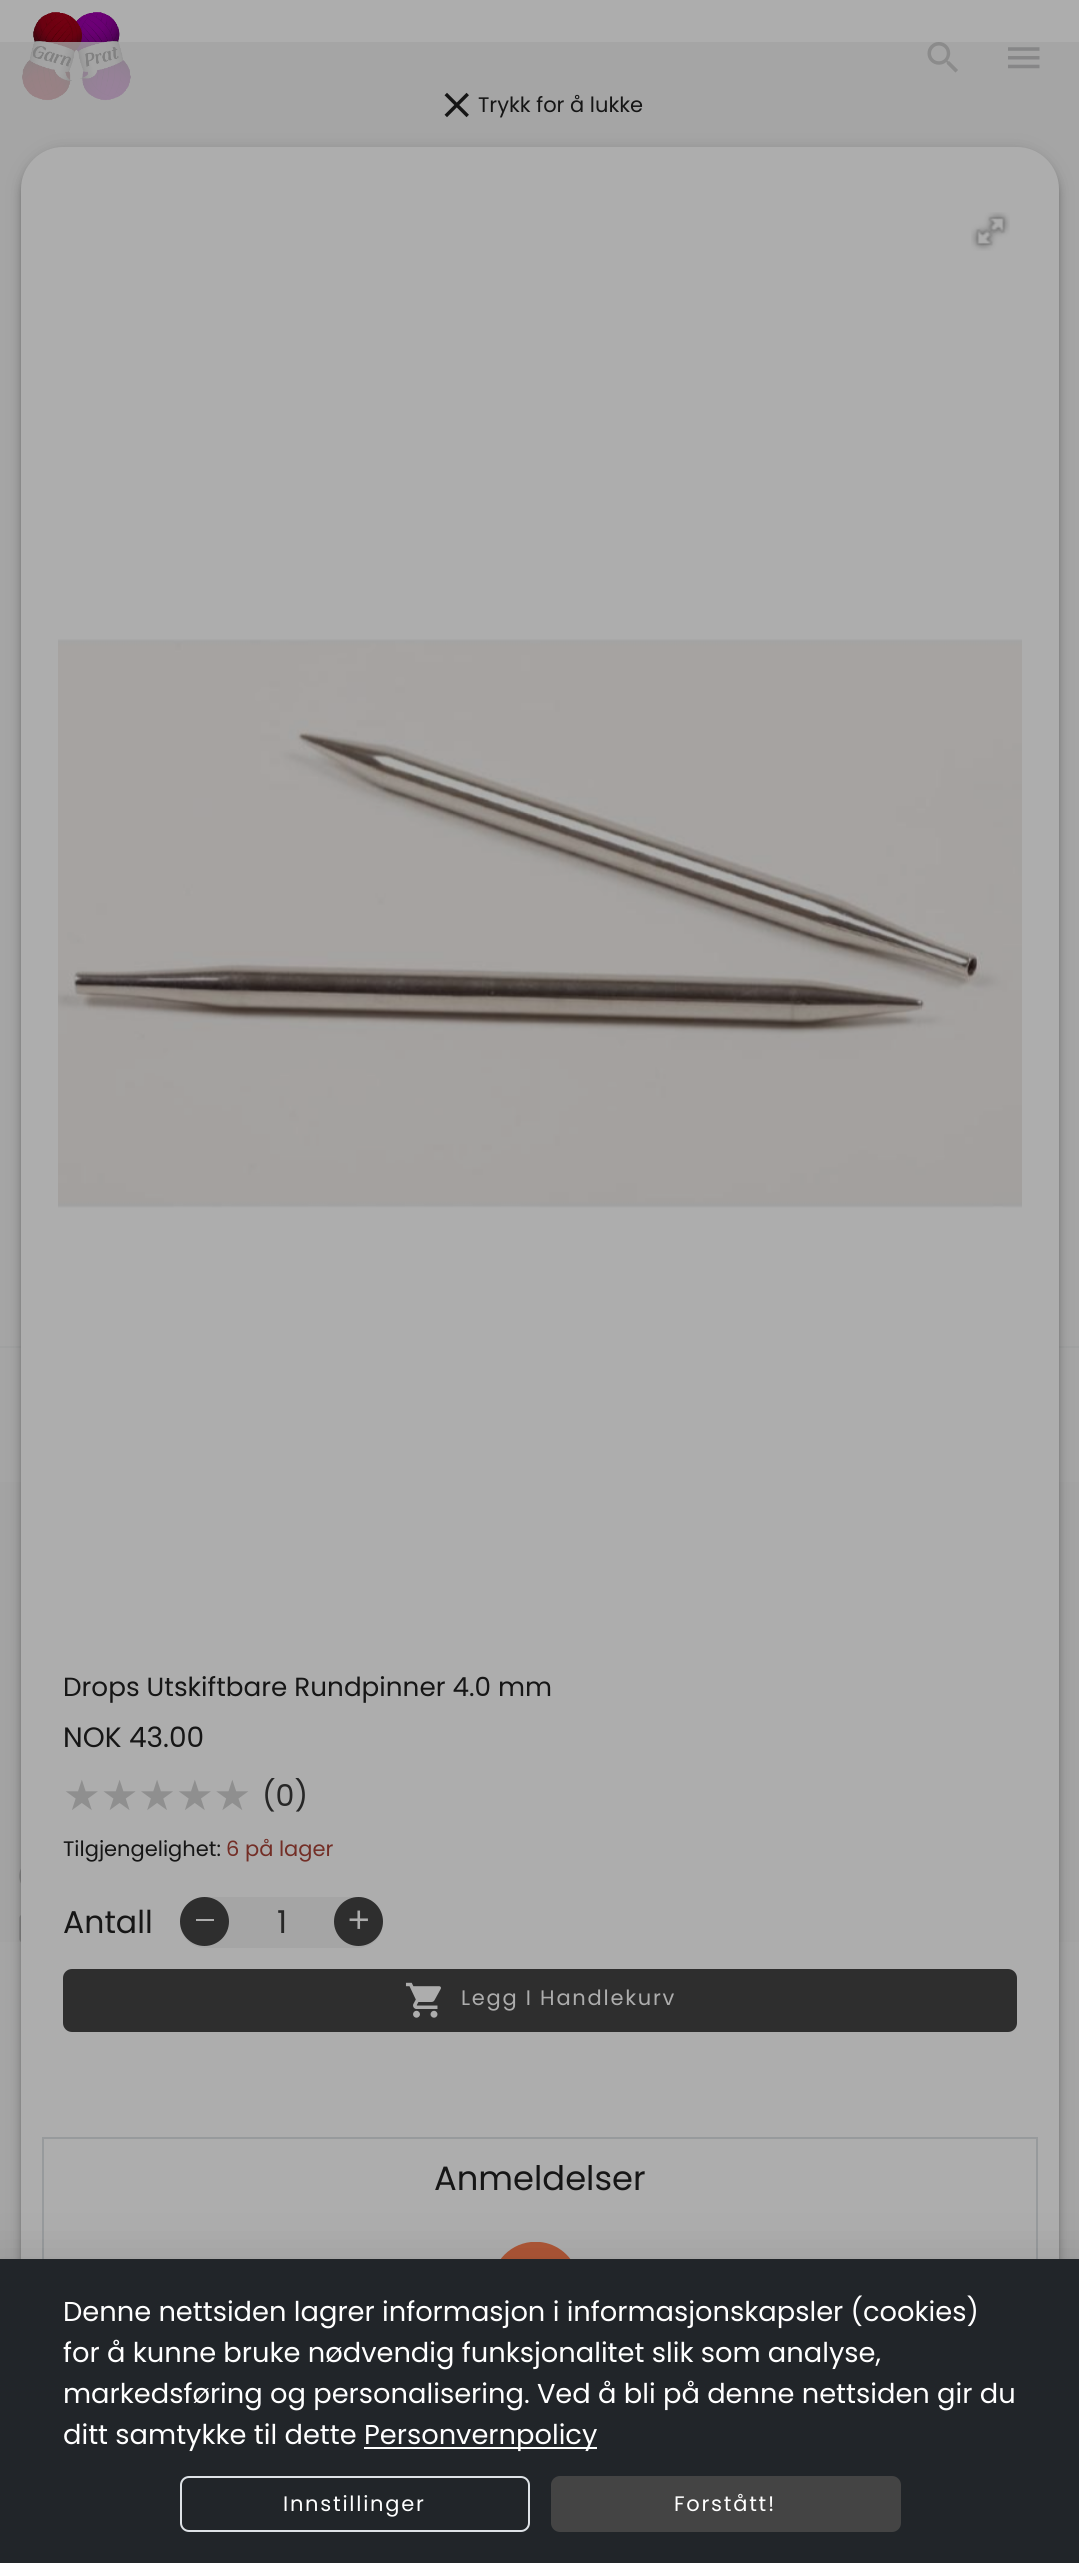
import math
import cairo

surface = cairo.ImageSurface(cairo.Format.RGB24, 1079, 2563)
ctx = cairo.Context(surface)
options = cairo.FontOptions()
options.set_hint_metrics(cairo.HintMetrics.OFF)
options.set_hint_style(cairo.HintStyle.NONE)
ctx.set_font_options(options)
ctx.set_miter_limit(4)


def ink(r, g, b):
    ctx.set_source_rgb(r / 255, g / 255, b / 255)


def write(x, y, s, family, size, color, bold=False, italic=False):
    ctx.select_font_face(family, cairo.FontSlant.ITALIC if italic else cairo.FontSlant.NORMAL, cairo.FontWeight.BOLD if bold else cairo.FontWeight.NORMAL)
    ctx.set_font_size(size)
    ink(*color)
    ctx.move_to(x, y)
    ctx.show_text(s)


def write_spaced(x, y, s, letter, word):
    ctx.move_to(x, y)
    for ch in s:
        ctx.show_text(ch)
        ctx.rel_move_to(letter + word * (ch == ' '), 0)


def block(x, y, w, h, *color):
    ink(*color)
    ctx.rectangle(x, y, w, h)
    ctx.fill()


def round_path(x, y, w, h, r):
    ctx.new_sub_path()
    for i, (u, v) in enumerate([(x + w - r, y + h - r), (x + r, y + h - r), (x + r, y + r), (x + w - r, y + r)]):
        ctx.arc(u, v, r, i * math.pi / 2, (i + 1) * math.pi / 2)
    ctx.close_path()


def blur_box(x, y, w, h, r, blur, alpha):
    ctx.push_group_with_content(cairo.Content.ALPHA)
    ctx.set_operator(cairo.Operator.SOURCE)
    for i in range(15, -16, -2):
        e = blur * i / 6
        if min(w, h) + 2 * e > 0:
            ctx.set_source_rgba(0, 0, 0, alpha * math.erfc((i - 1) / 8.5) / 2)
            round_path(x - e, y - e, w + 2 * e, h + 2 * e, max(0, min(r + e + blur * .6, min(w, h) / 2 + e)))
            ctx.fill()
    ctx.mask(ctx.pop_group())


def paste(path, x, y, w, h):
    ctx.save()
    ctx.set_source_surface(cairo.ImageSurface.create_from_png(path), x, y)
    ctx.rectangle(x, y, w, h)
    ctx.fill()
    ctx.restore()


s1 = dict(family="Poppins", size=21, color=(22, 22, 22))
s2 = dict(family="Poppins", size=26.25, color=(22, 22, 22))
s3 = dict(family="Poppins", size=28, color=(22, 22, 22))
s4 = dict(family="DejaVu Sans", size=42, color=(143, 143, 143))
s5 = dict(family="Poppins", size=30, color=(39, 39, 39))
s6 = dict(family="Poppins", size=21, color=(115, 46, 38))
s7 = dict(family="Poppins", size=31.5, color=(22, 22, 22))
s8 = dict(family="Poppins", size=31.5, color=(39, 39, 39))
s9 = dict(family="Poppins", size=33.75, color=(22, 22, 22))
s10 = dict(family="Poppins", size=27.3, color=(255, 255, 255))

ink(173, 173, 173)
ctx.paint()
paste("pic1.png", 22, 12, 109, 89)
paste("pic2.png", 927, 42, 31, 31)
paste("pic3.png", 1008, 47, 32, 22)
block(0, 1346, 1079, 2, 151, 154, 156)
block(0, 1482, 1079, 777, 165, 165, 165)
paste("pic10.png", 19, 1868, 2, 16)
paste("pic11.png", 19, 1915, 2, 27)
ctx.set_source_rgba(0.639, 0.639, 0.639, 0.79)
ctx.rectangle(0, 42, 1079, 1900)
ctx.fill()
paste("pic4.png", 444, 92, 25, 26)
write(478, 112, "Trykk for å lukke", **s1)
ink(0, 0, 0)
blur_box(21, 149, 1038, 2396, 42, 9, 0.12)
blur_box(21, 154, 1038, 2396, 42, 4.5, 0.14)
blur_box(23, 152, 1034, 2393, 40, 3.5, 0.2)
ink(173, 173, 173)
ctx.new_path()
ctx.move_to(63, 147)
ctx.line_to(1017, 147)
ctx.curve_to(1040, 147, 1059, 166, 1059, 189)
ctx.line_to(1059, 2543)
ctx.line_to(21, 2543)
ctx.line_to(21, 189)
ctx.curve_to(21, 166, 40, 147, 63, 147)
ctx.close_path()
ctx.fill()
paste("pic5.png", 971, 212, 39, 39)
paste("pic6.png", 58, 639, 964, 569)
write(63, 1696, "Drops Utskiftbare Rundpinner 4.0 mm", **s2)
write(63, 1747, "NOK 43.00", **s3)
write(63, 1810, "★★★★★", **s4)
write(262, 1806, "(0)", **s5)
write(63, 1856, "Tilgjengelighet:", **s1)
write(226, 1856, "6 på lager", **s6)
write(63, 1933, "Antall", **s7)
ink(165, 165, 165)
round_path(180, 1897, 203, 51, 25.5)
ctx.fill()
ink(46, 46, 46)
ctx.arc(204.5, 1921.5, 24.5, 0, 2 * math.pi)
ctx.fill()
block(196, 1919, 18, 2, 173, 173, 173)
write(277, 1933, "1", **s8)
ink(46, 46, 46)
ctx.new_path()
ctx.arc(358.5, 1921.5, 24.5, 0, 2 * math.pi)
ctx.fill()
paste("pic7.png", 349, 1910, 19, 19)
round_path(63, 1969, 954, 63, 9)
ctx.fill()
paste("pic8.png", 405, 1982, 36, 36)
ctx.set_font_size(21)
ink(173, 173, 173)
write_spaced(461, 2005, "Legg I Handlekurv", 1.75, 0)
ctx.rectangle(43, 2138, 994, 260)
ink(151, 154, 156)
ctx.stroke()
write(434, 2190, "Anmeldelser", **s9)
paste("pic9.png", 500, 2242, 71, 17)
ink(0, 0, 0)
blur_box(-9, 2261, 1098, 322, 0, 26, 0.12)
block(0, 2259, 1079, 304, 33, 37, 41)
write(63, 2321, "Denne nettsiden lagrer informasjon i informasjonskapsler (cookies)", **s10)
write(63, 2362, "for å kunne bruke nødvendig funksjonalitet slik som analyse,", **s10)
write(63, 2403, "markedsføring og personalisering. Ved å bli på denne nettsiden gir du", **s10)
write(63, 2444, "ditt samtykke til dette", **s10)
block(364, 2447, 233, 2, 255, 255, 255)
write(364, 2444, "Personvernpolicy", **s10)
round_path(181, 2477, 348, 54, 8)
ink(222, 226, 230)
ctx.stroke()
ctx.set_font_size(21)
ink(255, 255, 255)
write_spaced(283, 2511, "Innstillinger", 1.75, 0)
ink(68, 68, 68)
round_path(551, 2476, 350, 56, 9)
ctx.fill()
ink(255, 255, 255)
write_spaced(674, 2511, "Forstått!", 1.75, 0)
surface.write_to_png("screenshot.png")
